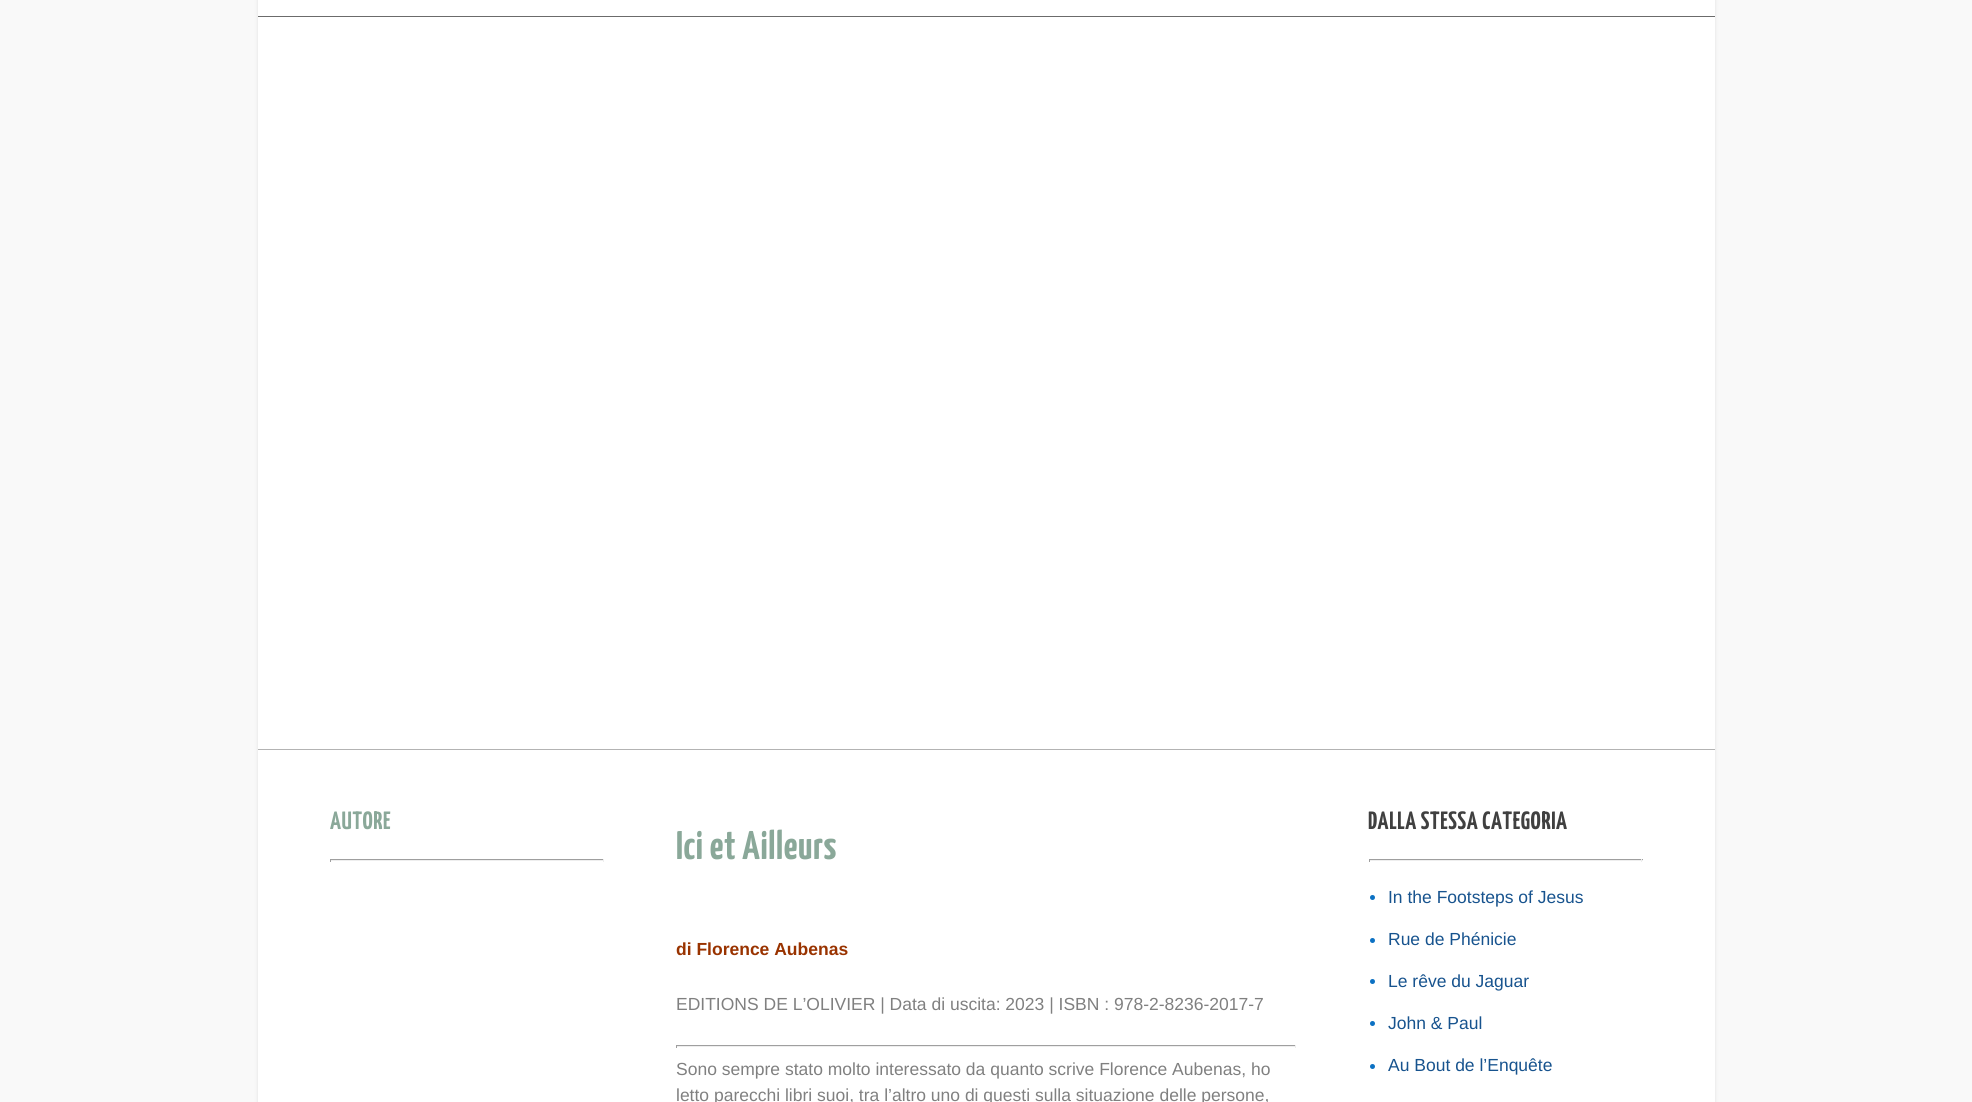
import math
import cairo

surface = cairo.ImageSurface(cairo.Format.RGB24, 1972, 1102)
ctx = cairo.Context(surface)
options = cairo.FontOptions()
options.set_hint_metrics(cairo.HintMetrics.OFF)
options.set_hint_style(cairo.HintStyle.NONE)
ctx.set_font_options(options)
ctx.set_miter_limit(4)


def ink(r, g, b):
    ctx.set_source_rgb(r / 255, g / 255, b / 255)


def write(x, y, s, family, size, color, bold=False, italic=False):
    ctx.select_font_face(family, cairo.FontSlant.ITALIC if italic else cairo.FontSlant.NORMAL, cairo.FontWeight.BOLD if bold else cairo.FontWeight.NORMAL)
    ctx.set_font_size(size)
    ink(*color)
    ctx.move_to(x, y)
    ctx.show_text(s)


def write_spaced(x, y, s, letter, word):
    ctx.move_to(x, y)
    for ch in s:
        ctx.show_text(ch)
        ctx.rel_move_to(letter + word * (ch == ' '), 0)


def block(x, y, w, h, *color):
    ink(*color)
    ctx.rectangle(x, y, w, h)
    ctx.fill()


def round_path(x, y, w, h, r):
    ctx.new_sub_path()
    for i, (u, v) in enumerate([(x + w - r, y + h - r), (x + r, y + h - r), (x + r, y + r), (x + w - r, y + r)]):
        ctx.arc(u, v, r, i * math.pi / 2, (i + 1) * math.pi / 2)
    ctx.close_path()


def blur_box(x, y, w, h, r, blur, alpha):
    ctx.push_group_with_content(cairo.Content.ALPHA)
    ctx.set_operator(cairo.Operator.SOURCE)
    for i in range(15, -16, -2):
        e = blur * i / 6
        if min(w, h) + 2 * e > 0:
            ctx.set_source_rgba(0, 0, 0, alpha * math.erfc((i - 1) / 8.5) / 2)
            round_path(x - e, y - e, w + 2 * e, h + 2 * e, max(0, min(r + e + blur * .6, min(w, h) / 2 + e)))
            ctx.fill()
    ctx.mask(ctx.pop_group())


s1 = dict(family="Liberation Sans", size=17.5, color=(153, 51, 0), bold=True)
s2 = dict(family="Liberation Sans", size=17.5, color=(128, 128, 128))
s3 = dict(family="Liberation Sans", size=17.5, color=(23, 83, 142))

ink(249, 249, 249)
ctx.paint()
ink(0, 0, 0)
blur_box(258, -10, 1457, 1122, 4, 2, 0.1)
block(258, 0, 1457, 1102, 255, 255, 255)
block(258, 16, 1457, 1, 107, 107, 107)
block(258, 749, 1457, 1, 179, 179, 179)
ctx.select_font_face("Yanone Kaffeesatz ExtraLight")
ctx.set_font_size(25)
ink(138, 168, 153)
write_spaced(330, 829, "AUTORE", 0.6, 0)
block(330, 859, 274, 1, 159, 159, 159)
block(603, 859, 1, 3, 238, 238, 238)
block(330, 860, 274, 1, 238, 238, 238)
block(330, 859, 1, 3, 159, 159, 159)
ctx.set_font_size(40)
ink(138, 168, 153)
write_spaced(676, 859, "Ici et Ailleurs", 0.6, 0)
write(676, 955, "di Florence Aubenas", **s1)
write(676, 1010, "EDITIONS DE L’OLIVIER | Data di uscita: 2023 | ISBN : 978-2-8236-2017-7", **s2)
block(676, 1045, 620, 1, 159, 159, 159)
block(1295, 1045, 1, 3, 238, 238, 238)
block(676, 1046, 620, 1, 238, 238, 238)
block(676, 1045, 1, 3, 159, 159, 159)
write(676, 1075, "Sono sempre stato molto interessato da quanto scrive Florence Aubenas, ho", **s2)
write(676, 1101, "letto parecchi libri suoi, tra l’altro uno di questi sulla situazione delle persone,", **s2)
ctx.select_font_face("Yanone Kaffeesatz ExtraLight")
ctx.set_font_size(25)
ink(64, 64, 64)
write_spaced(1368, 829, "DALLA STESSA CATEGORIA", 0.6, 0)
block(1369, 859, 274, 1, 159, 159, 159)
block(1641, 859, 1, 3, 238, 238, 238)
block(1369, 860, 274, 1, 238, 238, 238)
block(1369, 859, 1, 3, 159, 159, 159)
ink(12, 113, 195)
ctx.new_path()
ctx.arc(1372.5, 897.5, 2.5, 0, 2 * math.pi)
ctx.fill()
write(1388, 903, "In the Footsteps of Jesus", **s3)
ink(12, 113, 195)
ctx.new_path()
ctx.arc(1372.5, 940.5, 2.5, 0, 2 * math.pi)
ctx.fill()
write(1388, 945, "Rue de Phénicie", **s3)
ink(12, 113, 195)
ctx.new_path()
ctx.arc(1372.5, 981.5, 2.5, 0, 2 * math.pi)
ctx.fill()
write(1388, 987, "Le rêve du Jaguar", **s3)
ink(12, 113, 195)
ctx.new_path()
ctx.arc(1372.5, 1023.5, 2.5, 0, 2 * math.pi)
ctx.fill()
write(1388, 1029, "John & Paul", **s3)
ink(12, 113, 195)
ctx.new_path()
ctx.arc(1372.5, 1066.5, 2.5, 0, 2 * math.pi)
ctx.fill()
write(1388, 1071, "Au Bout de l’Enquête", **s3)
surface.write_to_png("screenshot.png")
